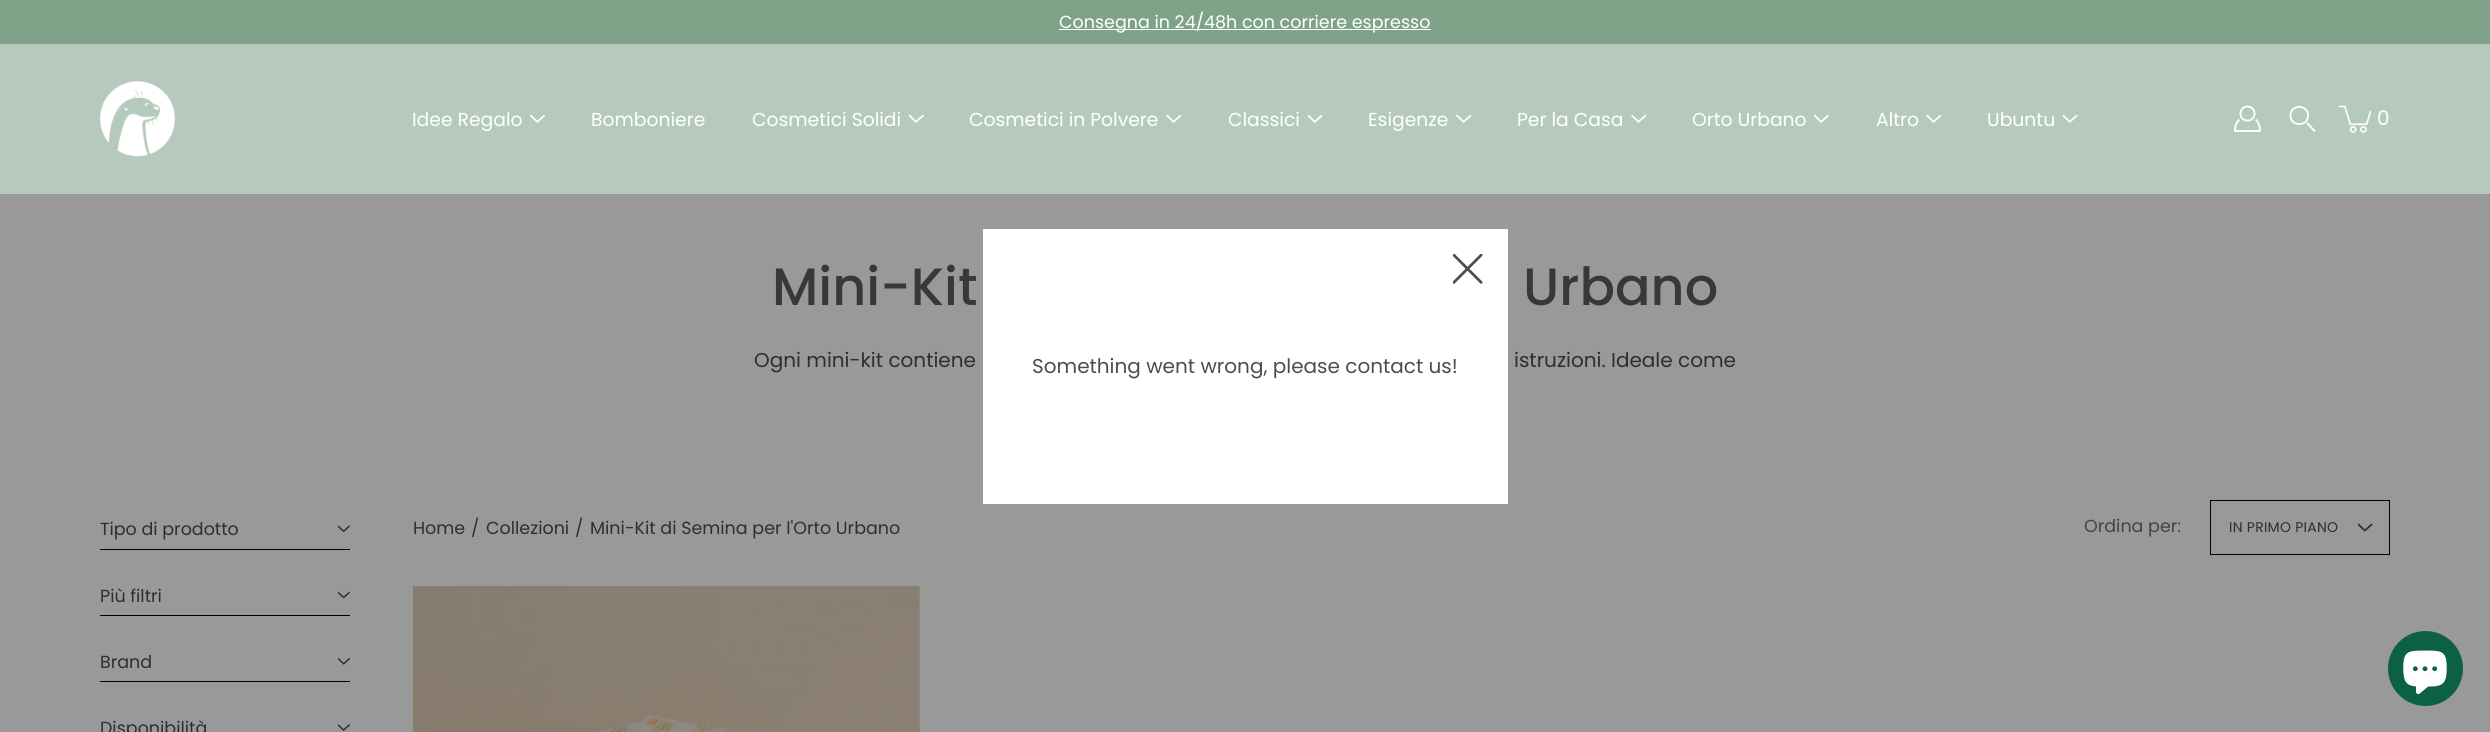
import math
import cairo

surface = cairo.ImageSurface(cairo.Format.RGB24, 2490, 732)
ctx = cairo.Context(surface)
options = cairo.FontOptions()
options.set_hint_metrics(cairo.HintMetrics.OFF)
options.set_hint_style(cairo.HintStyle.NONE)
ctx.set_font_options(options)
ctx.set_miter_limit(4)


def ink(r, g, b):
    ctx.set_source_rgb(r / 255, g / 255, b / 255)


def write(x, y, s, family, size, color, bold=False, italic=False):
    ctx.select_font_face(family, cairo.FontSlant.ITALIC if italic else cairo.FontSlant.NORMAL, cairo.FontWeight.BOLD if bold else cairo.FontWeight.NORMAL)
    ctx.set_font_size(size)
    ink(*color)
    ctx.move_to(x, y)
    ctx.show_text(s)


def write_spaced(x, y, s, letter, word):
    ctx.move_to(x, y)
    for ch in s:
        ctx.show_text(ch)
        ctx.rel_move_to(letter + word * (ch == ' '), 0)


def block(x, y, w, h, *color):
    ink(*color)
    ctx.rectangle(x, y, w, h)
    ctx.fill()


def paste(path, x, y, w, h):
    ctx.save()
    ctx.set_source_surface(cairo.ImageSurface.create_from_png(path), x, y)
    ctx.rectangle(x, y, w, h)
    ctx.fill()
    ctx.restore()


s1 = dict(family="Poppins", size=17.5, color=(255, 255, 255))
s2 = dict(family="Poppins", size=18.75, color=(255, 255, 255))
s3 = dict(family="Poppins", size=20, color=(255, 255, 255))
s4 = dict(family="Poppins Medium", size=52.5, color=(56, 56, 56))
s5 = dict(family="Poppins", size=20, color=(46, 46, 46))
s6 = dict(family="Poppins", size=17.5, color=(46, 46, 46))
s7 = dict(family="Poppins", size=17.5, color=(68, 68, 68))
s8 = dict(family="Poppins", size=20, color=(77, 77, 77))

ink(153, 153, 153)
ctx.paint()
block(0, 0, 2490, 44, 126, 163, 137)
block(1059, 29, 372, 1, 255, 255, 255)
write(1059, 28, "Consegna in 24/48h con corriere espresso", **s1)
block(0, 44, 2490, 150, 181, 202, 188)
paste("pic1.png", 100, 81, 75, 76)
write(412, 126, "Idee Regalo", **s2)
paste("pic2.png", 530, 114, 15, 9)
write(591, 126, "Bomboniere", **s2)
write(752, 126, "Cosmetici Solidi", **s2)
paste("pic3.png", 909, 114, 15, 9)
write(969, 126, "Cosmetici in Polvere", **s2)
paste("pic4.png", 1166, 114, 15, 9)
write(1228, 126, "Classici", **s2)
paste("pic5.png", 1308, 114, 15, 9)
write(1368, 126, "Esigenze", **s2)
paste("pic4.png", 1456, 114, 15, 9)
write(1517, 126, "Per la Casa", **s2)
paste("pic4.png", 1631, 114, 15, 9)
write(1692, 126, "Orto Urbano", **s2)
paste("pic3.png", 1814, 114, 15, 9)
write(1876, 126, "Altro", **s2)
paste("pic4.png", 1926, 114, 15, 9)
write(1987, 126, "Ubuntu", **s2)
paste("pic5.png", 2063, 114, 15, 9)
paste("pic6.png", 2234, 105, 27, 27)
ctx.new_path()
ctx.move_to(2308, 115.5)
ctx.curve_to(2308, 127, 2290.5, 127, 2290.5, 115.5)
ctx.curve_to(2290.5, 104, 2308, 104, 2308, 115.5)
ctx.close_path()
ctx.set_line_width(1.9)
ctx.stroke()
ctx.new_path()
ctx.move_to(2307.5, 123.5)
ctx.line_to(2314.5, 131)
ctx.set_line_cap(cairo.LineCap.ROUND)
ctx.stroke()
paste("pic7.png", 2338, 105, 34, 28)
write(2377, 125, "0", **s3)
write(772, 305, "Mini-Kit", **s4)
write(1523, 305, "Urbano", **s4)
write(754, 367, "Ogni mini-kit contiene", **s5)
write(1514, 367, "istruzioni. Ideale come", **s5)
block(100, 549, 250, 1, 0, 0, 0)
write(100, 535, "Tipo di prodotto", **s6)
paste("pic8.png", 338, 525, 12, 7)
block(100, 615, 250, 1, 0, 0, 0)
write(100, 602, "Più filtri", **s6)
paste("pic9.png", 338, 591, 12, 8)
block(100, 681, 250, 1, 0, 0, 0)
write(100, 668, "Brand", **s6)
paste("pic10.png", 338, 658, 12, 7)
write(100, 734, "Disponibilità", **s6)
paste("pic11.png", 338, 724, 12, 7)
write(413, 534, "Home", **s6)
write(471, 534, "/", **s6)
write(486, 534, "Collezioni", **s6)
write(575, 534, "/", **s6)
write(590, 534, "Mini-Kit di Semina per l'Orto Urbano", **s6)
write(2084, 532, "Ordina per:", **s7)
ctx.rectangle(2210.5, 500.5, 179, 54)
ink(0, 0, 0)
ctx.set_line_width(1)
ctx.set_line_cap(cairo.LineCap.BUTT)
ctx.stroke()
ctx.set_font_size(14)
ink(46, 46, 46)
write_spaced(2229, 532, "IN PRIMO PIANO", 0.25, 0)
paste("pic12.png", 2358, 523, 15, 9)
paste("pic13.png", 413, 586, 507, 146)
block(983, 229, 525, 275, 255, 255, 255)
paste("pic14.png", 1453, 254, 30, 30)
write(1032, 373, "Something went wrong, please contact us!", **s8)
ink(11, 96, 70)
ctx.new_path()
ctx.arc(2425.5, 668.5, 37.5, 0, 2 * math.pi)
ctx.fill()
paste("pic15.png", 2403, 650, 44, 45)
surface.write_to_png("screenshot.png")
